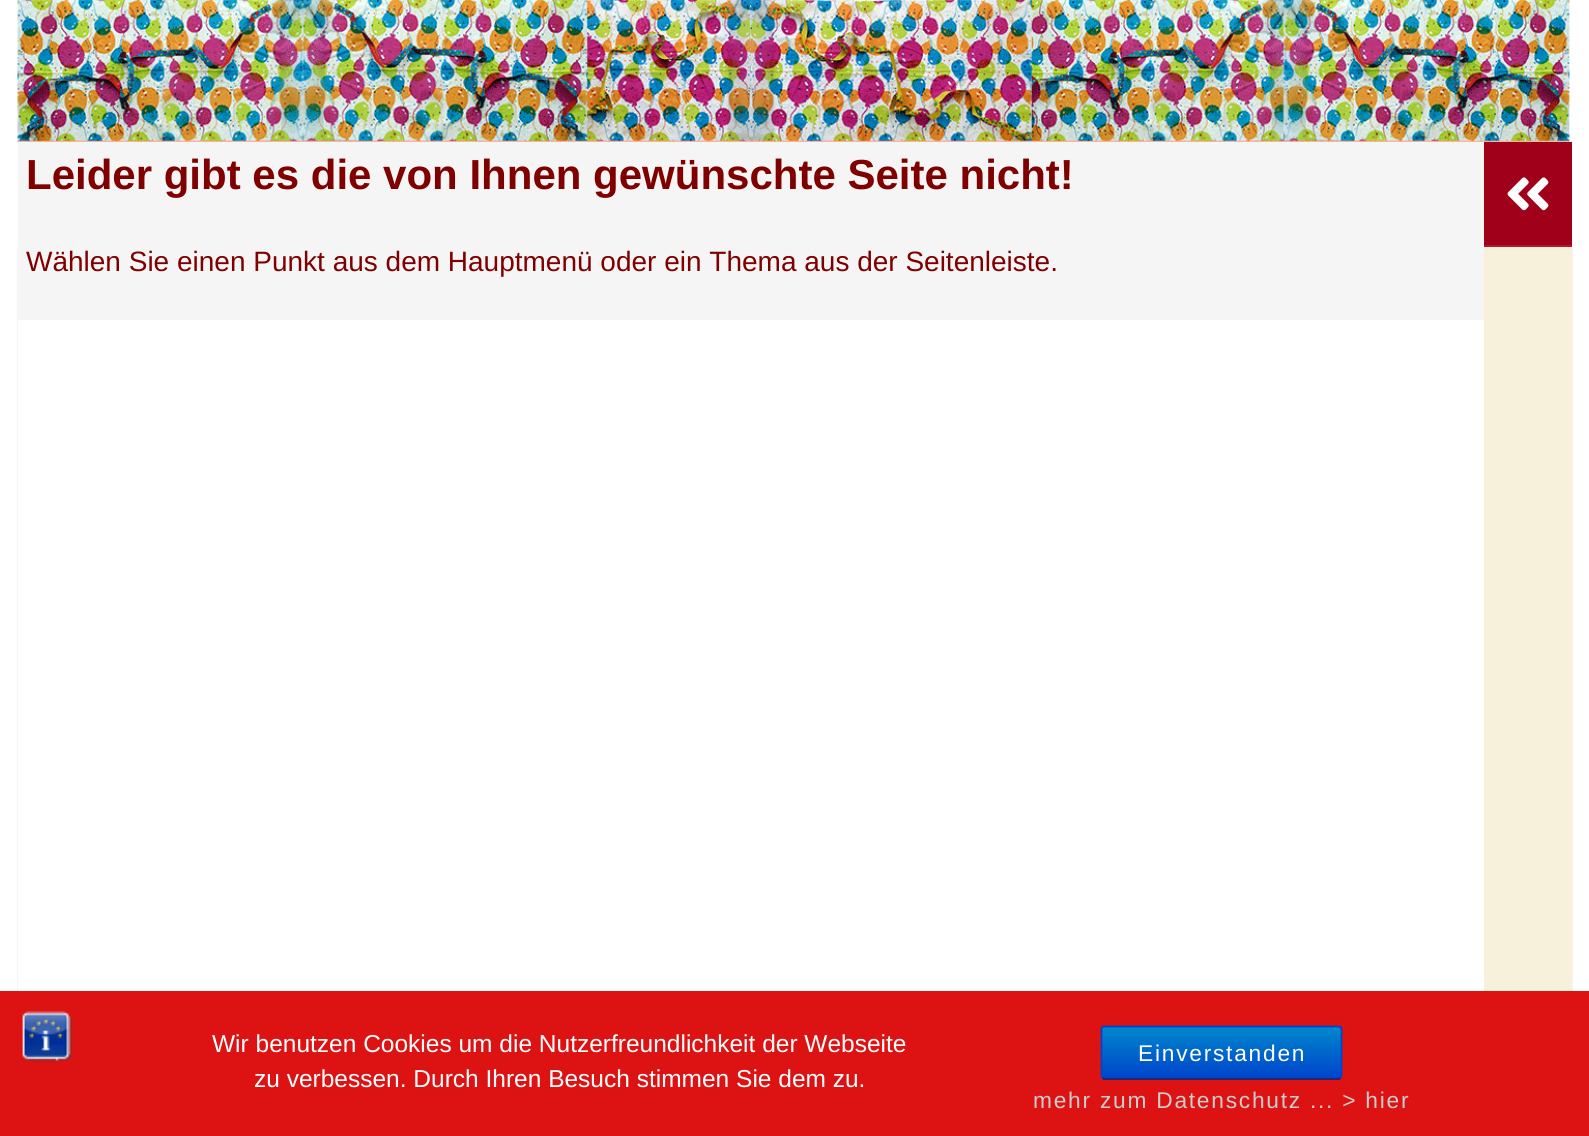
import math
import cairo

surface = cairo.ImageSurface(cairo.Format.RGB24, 1589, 1136)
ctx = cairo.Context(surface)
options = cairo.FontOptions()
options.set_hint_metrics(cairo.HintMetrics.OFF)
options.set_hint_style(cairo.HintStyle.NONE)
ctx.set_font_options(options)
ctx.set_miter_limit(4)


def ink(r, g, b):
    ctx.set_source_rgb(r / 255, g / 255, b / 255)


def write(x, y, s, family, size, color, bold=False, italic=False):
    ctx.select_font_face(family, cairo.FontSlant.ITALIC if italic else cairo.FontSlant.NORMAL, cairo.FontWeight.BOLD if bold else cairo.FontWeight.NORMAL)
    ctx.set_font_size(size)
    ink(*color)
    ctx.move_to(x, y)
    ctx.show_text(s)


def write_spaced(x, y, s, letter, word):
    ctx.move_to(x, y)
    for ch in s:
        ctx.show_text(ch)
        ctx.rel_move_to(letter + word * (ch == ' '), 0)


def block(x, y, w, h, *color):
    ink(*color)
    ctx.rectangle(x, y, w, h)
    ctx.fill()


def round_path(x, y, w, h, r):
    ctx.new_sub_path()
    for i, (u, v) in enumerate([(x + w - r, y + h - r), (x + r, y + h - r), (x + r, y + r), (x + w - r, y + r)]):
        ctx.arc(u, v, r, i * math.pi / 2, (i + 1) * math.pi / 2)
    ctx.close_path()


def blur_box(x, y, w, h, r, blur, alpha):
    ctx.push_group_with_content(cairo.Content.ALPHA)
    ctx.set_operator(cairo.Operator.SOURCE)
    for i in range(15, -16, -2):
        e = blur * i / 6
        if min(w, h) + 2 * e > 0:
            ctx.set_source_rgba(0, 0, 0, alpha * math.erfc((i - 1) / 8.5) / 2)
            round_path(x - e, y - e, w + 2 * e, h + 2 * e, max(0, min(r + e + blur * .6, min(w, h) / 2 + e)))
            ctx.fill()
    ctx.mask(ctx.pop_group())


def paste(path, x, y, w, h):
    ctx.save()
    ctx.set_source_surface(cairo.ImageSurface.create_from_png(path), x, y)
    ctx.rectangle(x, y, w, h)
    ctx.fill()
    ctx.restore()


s1 = dict(family="Liberation Sans", size=42, color=(128, 0, 0), bold=True)
s2 = dict(family="Liberation Sans", size=28, color=(128, 0, 0))
s3 = dict(family="Liberation Sans", size=24.5, color=(255, 255, 255))

ink(255, 255, 255)
ctx.paint()
ink(0, 0, 0)
blur_box(18, 144, 1554, 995, 0, 1, 0.1)
ctx.set_source_rgba(1, 1, 1, 0.99)
ctx.rectangle(17, 143, 1556, 104)
ctx.fill()
paste("pic1.png", 17, 0, 1553, 142)
block(18, 320, 1466, 671, 255, 255, 255)
block(18, 142, 1466, 178, 245, 245, 245)
write(26, 189, "Leider gibt es die von Ihnen gewünschte Seite nicht!", **s1)
write(26, 271, "Wählen Sie einen Punkt aus dem Hauptmenü oder ein Thema aus der Seitenleiste.", **s2)
block(1484, 142, 88, 103, 160, 0, 26)
block(1484, 245, 88, 2, 170, 26, 49)
paste("pic2.png", 1507, 177, 42, 34)
block(1484, 247, 88, 744, 247, 241, 220)
block(0, 991, 1589, 145, 221, 19, 19)
paste("pic3.png", 22, 1011, 52, 52)
write(212, 1052, "Wir benutzen Cookies um die Nutzerfreundlichkeit der Webseite", **s3)
write(254, 1087, "zu verbessen. Durch Ihren Besuch stimmen Sie dem zu.", **s3)
ctx.save()
round_path(1101, 1026, 241, 54, 4)
ctx.clip()
gradient = cairo.LinearGradient(1222, 1027, 1222, 1078)
gradient.add_color_stop_rgba(0, 0, 0.533, 0.8, 1)
gradient.add_color_stop_rgba(1, 0, 0.267, 0.8, 1)
ctx.set_source(gradient)
ctx.rectangle(1101, 1027, 241, 51)
ctx.fill()
ctx.restore()
ctx.new_path()
ctx.move_to(1340.5, 1078)
ctx.line_to(1339, 1079)
ctx.line_to(1104, 1079)
ctx.line_to(1102.5, 1078)
ink(0, 42, 128)
ctx.set_line_width(1.8)
ctx.stroke()
ctx.new_path()
ctx.move_to(1102.5, 1078)
ctx.line_to(1101.5, 1076)
ctx.line_to(1101.5, 1029)
ctx.line_to(1102.5, 1027)
ctx.line_to(1104, 1026.5)
ctx.line_to(1339, 1026.5)
ctx.line_to(1340.5, 1027)
ctx.line_to(1341.5, 1029)
ctx.line_to(1341.5, 1076)
ctx.line_to(1340.5, 1078)
ink(0, 68, 204)
ctx.stroke()
ctx.set_font_size(22.75)
ink(255, 255, 255)
write_spaced(1138, 1061, "Einverstanden", 1.75, 0)
ink(204, 204, 204)
write_spaced(1033, 1108, "mehr zum Datenschutz ... > hier", 1.75, 0)
surface.write_to_png("screenshot.png")
